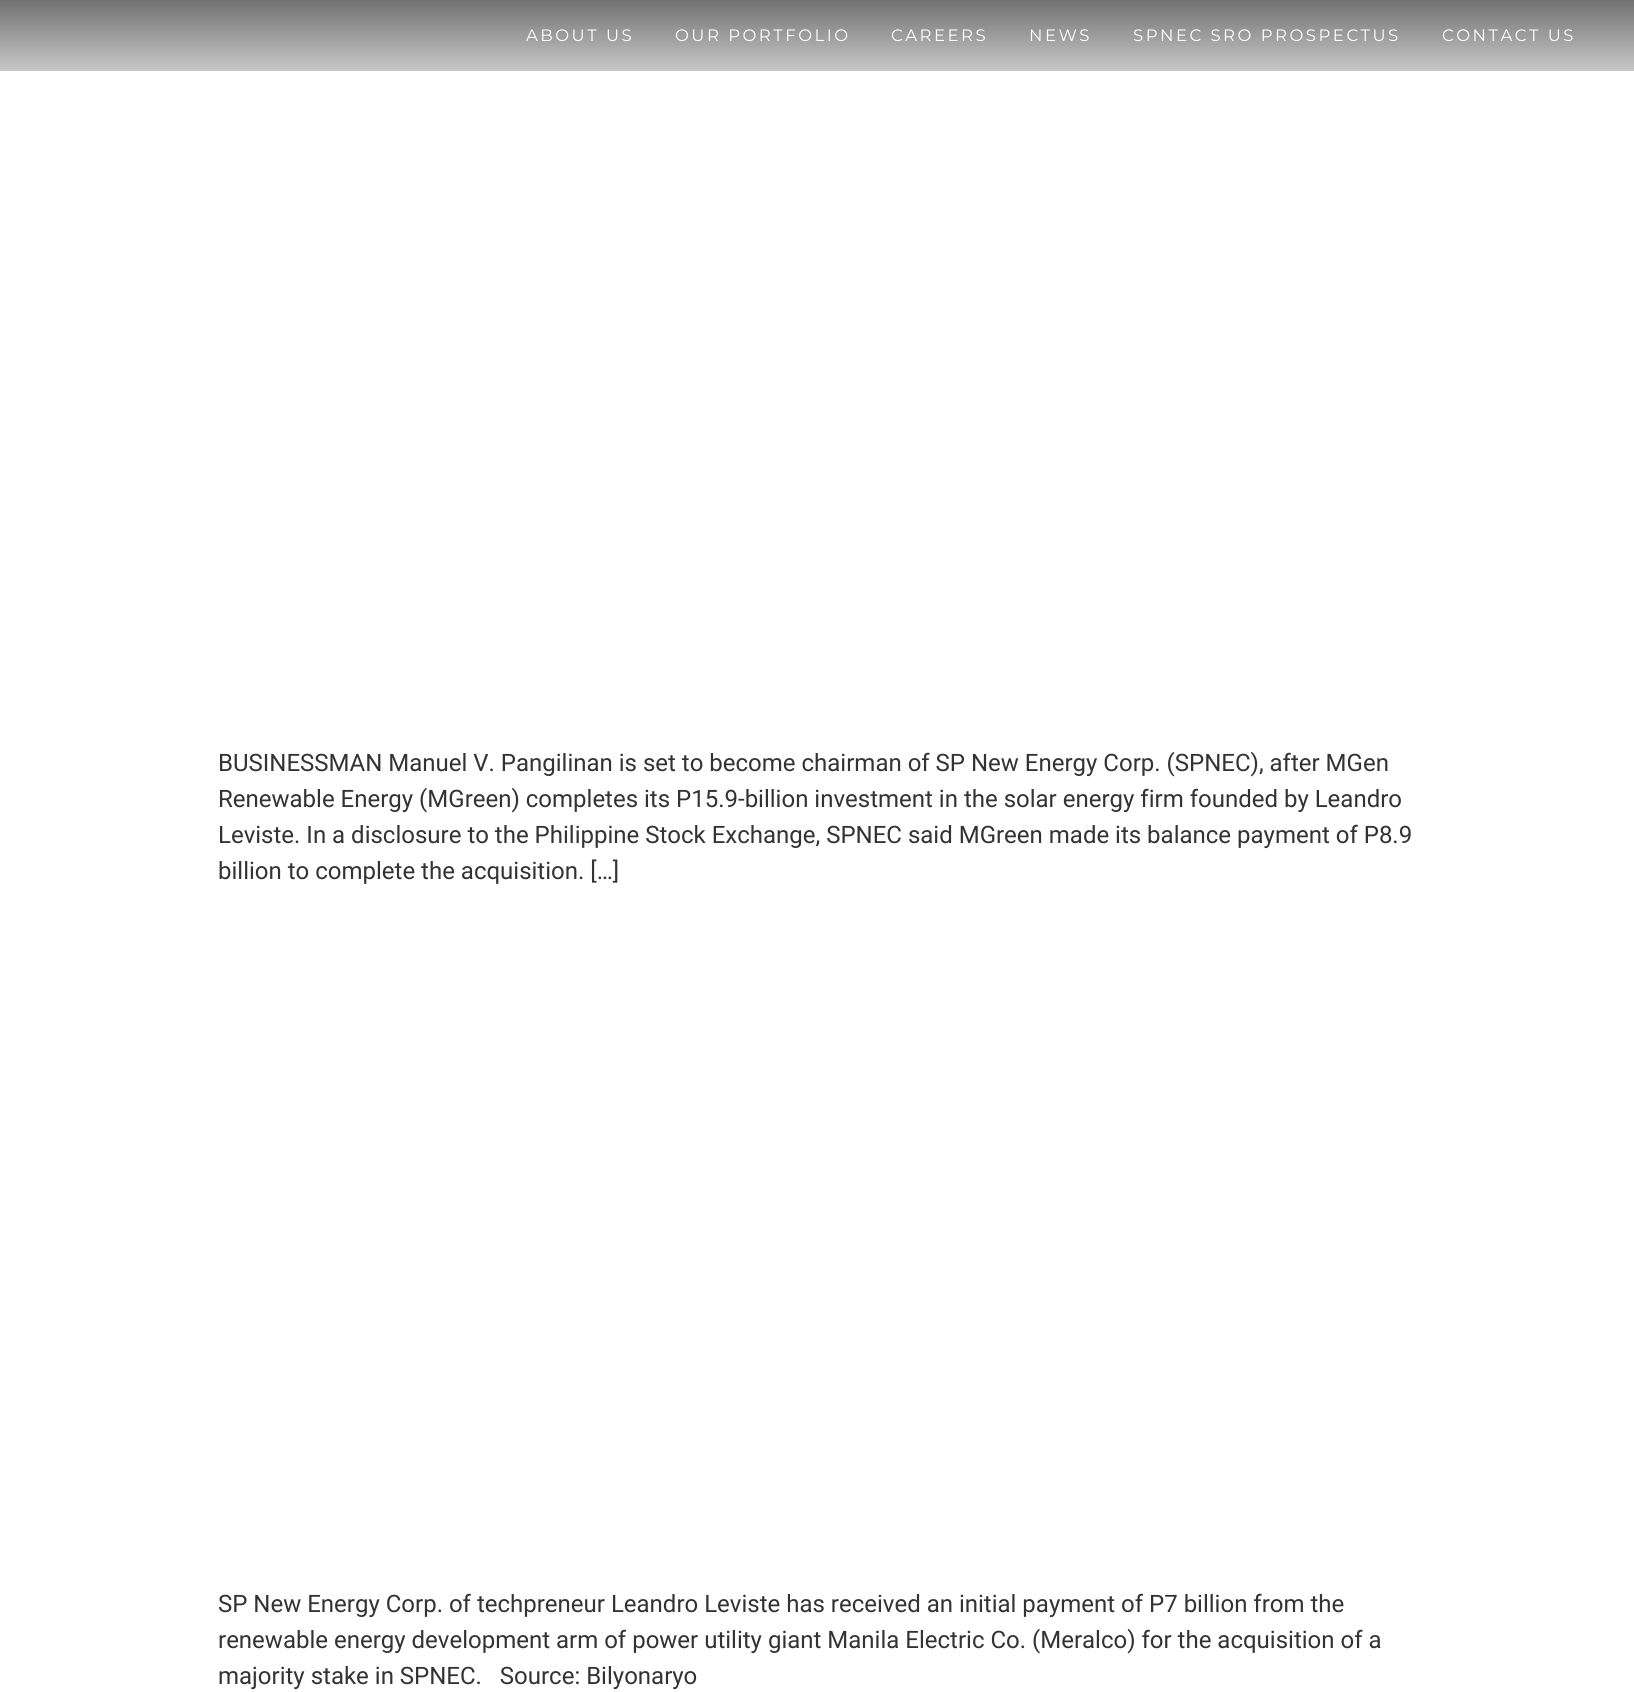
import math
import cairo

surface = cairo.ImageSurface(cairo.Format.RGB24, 1634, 1692)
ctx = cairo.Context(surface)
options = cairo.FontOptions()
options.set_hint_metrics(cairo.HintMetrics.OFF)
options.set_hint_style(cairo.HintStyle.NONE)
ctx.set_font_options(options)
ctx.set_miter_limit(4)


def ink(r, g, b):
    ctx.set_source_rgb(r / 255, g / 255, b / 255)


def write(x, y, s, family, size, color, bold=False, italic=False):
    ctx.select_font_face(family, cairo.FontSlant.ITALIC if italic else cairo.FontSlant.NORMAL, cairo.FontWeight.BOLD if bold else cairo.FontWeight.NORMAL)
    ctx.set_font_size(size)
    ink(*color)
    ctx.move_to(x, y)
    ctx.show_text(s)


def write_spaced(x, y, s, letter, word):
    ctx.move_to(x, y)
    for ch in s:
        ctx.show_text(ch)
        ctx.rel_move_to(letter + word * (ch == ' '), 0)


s1 = dict(family="Roboto", size=24, color=(51, 51, 51))

ink(255, 255, 255)
ctx.paint()
gradient = cairo.LinearGradient(818, 71, 818, -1.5)
gradient.add_color_stop_rgba(0, 0.784, 0.78, 0.78, 1)
gradient.add_color_stop_rgba(1, 0.439, 0.439, 0.439, 1)
ctx.set_source(gradient)
ctx.rectangle(0, 0, 1634, 71)
ctx.fill()
ctx.select_font_face("Montserrat")
ctx.set_font_size(16.5)
ink(255, 255, 255)
write_spaced(526, 41, "ABOUT US", 2.5, 0)
write_spaced(675, 41, "OUR PORTFOLIO", 2.5, 0)
write_spaced(891, 41, "CAREERS", 2.5, 0)
write_spaced(1029, 41, "NEWS", 2.5, 0)
write_spaced(1133, 41, "SPNEC SRO PROSPECTUS", 2.5, 0)
write_spaced(1442, 41, "CONTACT US", 2.5, 0)
write(218, 771, "BUSINESSMAN Manuel V. Pangilinan is set to become chairman of SP New Energy Corp. (SPNEC), after MGen", **s1)
write(218, 807, "Renewable Energy (MGreen) completes its P15.9-billion investment in the solar energy firm founded by Leandro", **s1)
write(218, 843, "Leviste. In a disclosure to the Philippine Stock Exchange, SPNEC said MGreen made its balance payment of P8.9", **s1)
write(218, 879, "billion to complete the acquisition. […]", **s1)
write(218, 1612, "SP New Energy Corp. of techpreneur Leandro Leviste has received an initial payment of P7 billion from the", **s1)
write(218, 1648, "renewable energy development arm of power utility giant Manila Electric Co. (Meralco) for the acquisition of a", **s1)
write(218, 1684, "majority stake in SPNEC.   Source: Bilyonaryo", **s1)
surface.write_to_png("screenshot.png")
